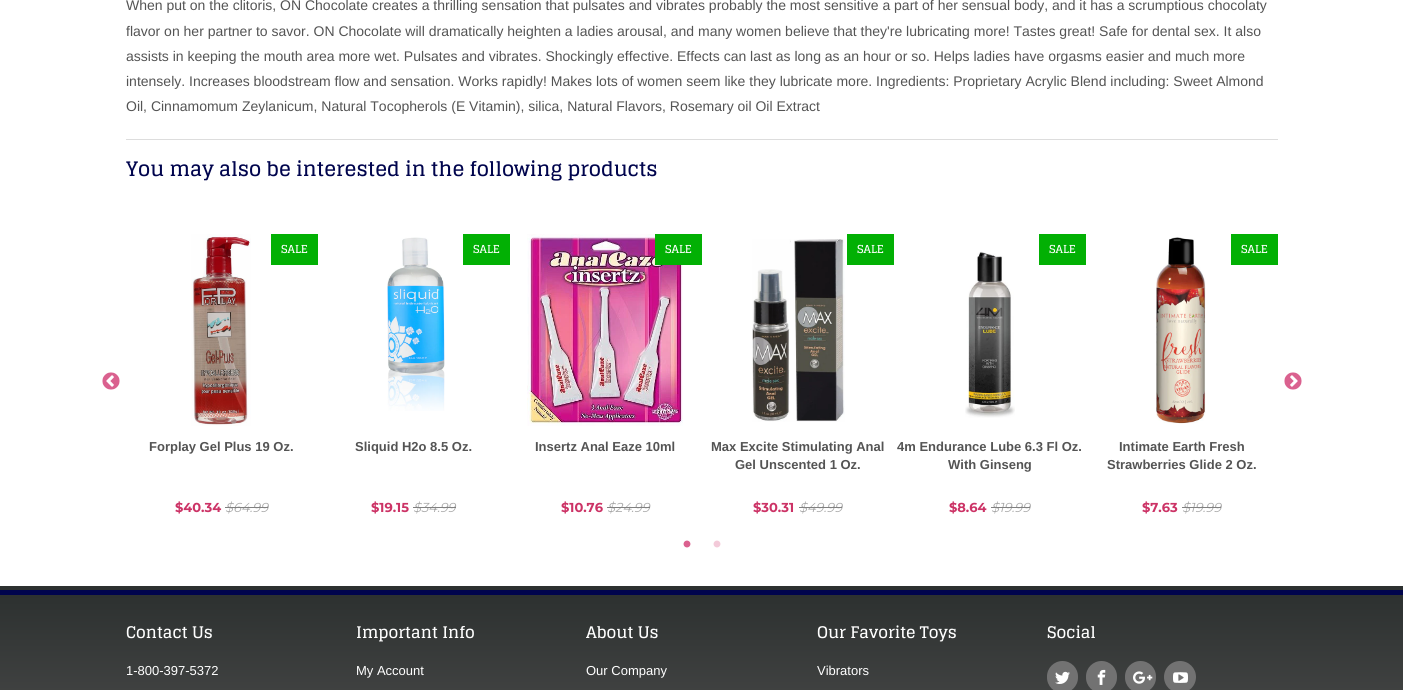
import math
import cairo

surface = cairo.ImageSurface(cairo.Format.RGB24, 1403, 690)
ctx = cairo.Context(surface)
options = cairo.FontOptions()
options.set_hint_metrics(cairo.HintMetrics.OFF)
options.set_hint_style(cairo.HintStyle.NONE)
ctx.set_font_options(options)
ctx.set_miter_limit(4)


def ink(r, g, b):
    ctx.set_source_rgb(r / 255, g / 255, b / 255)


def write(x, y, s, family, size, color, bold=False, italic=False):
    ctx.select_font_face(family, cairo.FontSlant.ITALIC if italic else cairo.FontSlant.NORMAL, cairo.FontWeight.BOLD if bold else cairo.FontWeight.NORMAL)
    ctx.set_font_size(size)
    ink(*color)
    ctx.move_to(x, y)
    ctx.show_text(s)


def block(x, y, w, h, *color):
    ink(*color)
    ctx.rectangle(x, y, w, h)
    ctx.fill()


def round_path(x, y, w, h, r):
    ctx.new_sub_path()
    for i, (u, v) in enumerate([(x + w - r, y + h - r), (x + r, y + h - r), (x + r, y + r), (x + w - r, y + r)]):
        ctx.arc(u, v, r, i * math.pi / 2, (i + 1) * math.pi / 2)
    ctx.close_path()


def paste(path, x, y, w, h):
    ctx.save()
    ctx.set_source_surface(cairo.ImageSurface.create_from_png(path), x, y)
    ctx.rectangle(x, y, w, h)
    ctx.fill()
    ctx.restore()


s1 = dict(family="Liberation Sans", size=14, color=(84, 84, 84))
s2 = dict(family="Glegoo", size=20, color=(0, 4, 77), bold=True)
s3 = dict(family="Glegoo", size=11, color=(255, 255, 255), bold=True)
s4 = dict(family="Liberation Sans", size=13, color=(84, 84, 84), bold=True)
s5 = dict(family="Montserrat", size=13, color=(204, 51, 102), bold=True)
s6 = dict(family="Montserrat", size=13, color=(170, 170, 170), italic=True)
s7 = dict(family="Glegoo", size=16, color=(255, 255, 255), bold=True)
s8 = dict(family="Liberation Sans", size=13, color=(255, 255, 255))

ink(255, 255, 255)
ctx.paint()
write(126, 10, "When put on the clitoris, ON Chocolate creates a thrilling sensation that pulsates and vibrates probably the most sensitive a part of her sensual body, and it has a scrumptious chocolaty", **s1)
write(126, 36, "flavor on her partner to savor. ON Chocolate will dramatically heighten a ladies arousal, and many women believe that they're lubricating more! Tastes great! Safe for dental sex. It also", **s1)
write(126, 61, "assists in keeping the mouth area more wet. Pulsates and vibrates. Shockingly effective. Effects can last as long as an hour or so. Helps ladies have orgasms easier and much more", **s1)
write(126, 86, "intensely. Increases bloodstream flow and sensation. Works rapidly! Makes lots of women seem like they lubricate more. Ingredients: Proprietary Acrylic Blend including: Sweet Almond", **s1)
write(126, 111, "Oil, Cinnamomum Zeylanicum, Natural Tocopherols (E Vitamin), silica, Natural Flavors, Rosemary oil Oil Extract", **s1)
block(126, 139, 1152, 1, 221, 221, 221)
write(126, 176, "You may also be interested in the following products", **s2)
paste("pic1.png", 102, 372, 18, 18)
paste("pic2.png", 191, 234, 60, 192)
block(271, 234, 47, 31, 2, 176, 4)
write(281, 253, "SALE", **s3)
write(149, 451, "Forplay Gel Plus 19 Oz.", **s4)
write(175, 512, "$40.34", **s5)
write(225, 512, "$64.99", **s6)
block(225, 507, 43, 1, 128, 128, 128)
paste("pic3.png", 387, 237, 58, 174)
block(463, 234, 47, 31, 2, 176, 4)
write(473, 253, "SALE", **s3)
write(355, 451, "Sliquid H2o 8.5 Oz.", **s4)
write(371, 512, "$19.15", **s5)
write(413, 512, "$34.99", **s6)
block(413, 507, 43, 1, 128, 128, 128)
paste("pic4.png", 527, 234, 156, 192)
block(655, 234, 47, 31, 2, 176, 4)
write(665, 253, "SALE", **s3)
write(535, 451, "Insertz Anal Eaze 10ml", **s4)
write(561, 512, "$10.76", **s5)
write(607, 512, "$24.99", **s6)
block(607, 507, 43, 1, 128, 128, 128)
paste("pic5.png", 752, 239, 93, 183)
block(847, 234, 47, 31, 2, 176, 4)
write(857, 253, "SALE", **s3)
write(711, 451, "Max Excite Stimulating Anal", **s4)
write(735, 469, "Gel Unscented 1 Oz.", **s4)
write(753, 512, "$30.31", **s5)
write(799, 512, "$49.99", **s6)
block(799, 507, 43, 1, 128, 128, 128)
block(1039, 234, 47, 31, 2, 176, 4)
write(1049, 253, "SALE", **s3)
paste("pic6.png", 965, 251, 50, 167)
write(897, 451, "4m Endurance Lube 6.3 Fl Oz.", **s4)
write(948, 469, "With Ginseng", **s4)
write(949, 512, "$8.64", **s5)
write(991, 512, "$19.99", **s6)
block(991, 507, 39, 1, 128, 128, 128)
paste("pic7.png", 1156, 237, 50, 187)
block(1231, 234, 47, 31, 2, 176, 4)
write(1241, 253, "SALE", **s3)
write(1119, 451, "Intimate Earth Fresh", **s4)
write(1107, 469, "Strawberries Glide 2 Oz.", **s4)
write(1142, 512, "$7.63", **s5)
write(1182, 512, "$19.99", **s6)
block(1182, 507, 39, 1, 128, 128, 128)
paste("pic8.png", 1284, 372, 18, 18)
paste("pic9.png", 683, 540, 8, 8)
paste("pic10.png", 713, 540, 8, 8)
gradient = cairo.LinearGradient(702, 595, 702, 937)
gradient.add_color_stop_rgba(0, 0.176, 0.192, 0.188, 1)
gradient.add_color_stop_rgba(0.51, 0.306, 0.306, 0.306, 1)
gradient.add_color_stop_rgba(1, 0.282, 0.282, 0.282, 1)
ctx.set_source(gradient)
ctx.rectangle(0, 595, 1403, 95)
ctx.fill()
block(0, 590, 1403, 5, 0, 4, 77)
block(0, 586, 1403, 4, 45, 49, 48)
write(126, 638, "Contact Us", **s7)
write(126, 675, "1-800-397-5372", **s8)
write(356, 638, "Important Info", **s7)
write(356, 675, "My Account", **s8)
write(586, 638, "About Us", **s7)
write(586, 675, "Our Company", **s8)
write(817, 638, "Our Favorite Toys", **s7)
write(817, 675, "Vibrators", **s8)
write(1047, 638, "Social", **s7)
ink(114, 114, 114)
round_path(1047, 661, 31, 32, 15.5)
ctx.fill()
paste("pic11.png", 1055, 671, 15, 13)
round_path(1086, 661, 31, 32, 15.5)
ctx.fill()
paste("pic12.png", 1097, 669, 9, 16)
round_path(1125, 661, 31, 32, 15.5)
ctx.fill()
paste("pic13.png", 1133, 671, 20, 13)
ctx.arc(1180, 677, 16, 0, 2 * math.pi)
ctx.fill()
paste("pic14.png", 1173, 672, 15, 11)
surface.write_to_png("screenshot.png")
